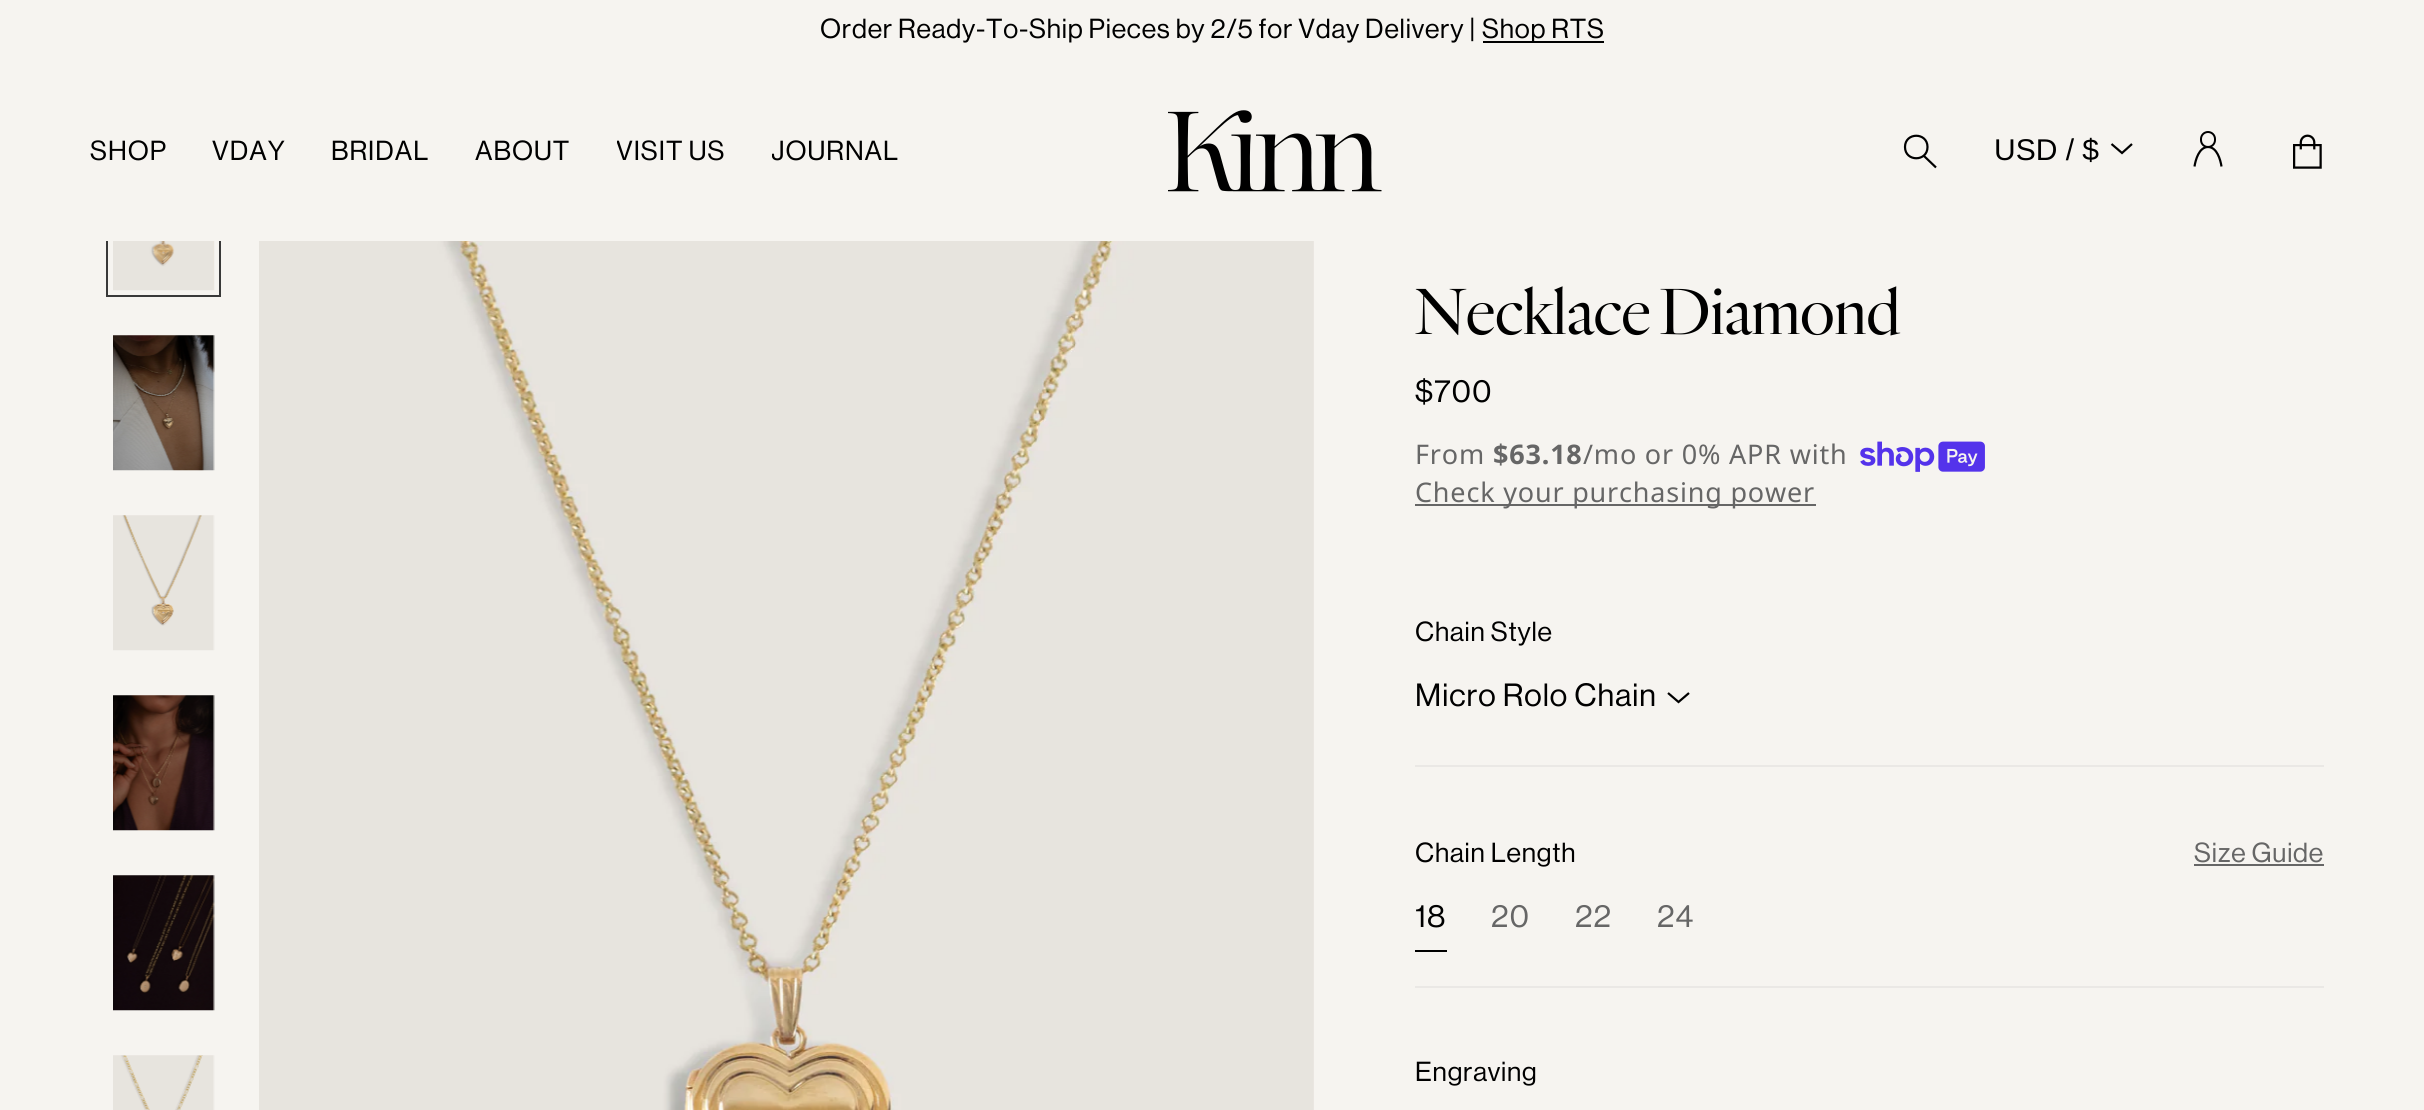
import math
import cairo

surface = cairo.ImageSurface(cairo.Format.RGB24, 2424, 1110)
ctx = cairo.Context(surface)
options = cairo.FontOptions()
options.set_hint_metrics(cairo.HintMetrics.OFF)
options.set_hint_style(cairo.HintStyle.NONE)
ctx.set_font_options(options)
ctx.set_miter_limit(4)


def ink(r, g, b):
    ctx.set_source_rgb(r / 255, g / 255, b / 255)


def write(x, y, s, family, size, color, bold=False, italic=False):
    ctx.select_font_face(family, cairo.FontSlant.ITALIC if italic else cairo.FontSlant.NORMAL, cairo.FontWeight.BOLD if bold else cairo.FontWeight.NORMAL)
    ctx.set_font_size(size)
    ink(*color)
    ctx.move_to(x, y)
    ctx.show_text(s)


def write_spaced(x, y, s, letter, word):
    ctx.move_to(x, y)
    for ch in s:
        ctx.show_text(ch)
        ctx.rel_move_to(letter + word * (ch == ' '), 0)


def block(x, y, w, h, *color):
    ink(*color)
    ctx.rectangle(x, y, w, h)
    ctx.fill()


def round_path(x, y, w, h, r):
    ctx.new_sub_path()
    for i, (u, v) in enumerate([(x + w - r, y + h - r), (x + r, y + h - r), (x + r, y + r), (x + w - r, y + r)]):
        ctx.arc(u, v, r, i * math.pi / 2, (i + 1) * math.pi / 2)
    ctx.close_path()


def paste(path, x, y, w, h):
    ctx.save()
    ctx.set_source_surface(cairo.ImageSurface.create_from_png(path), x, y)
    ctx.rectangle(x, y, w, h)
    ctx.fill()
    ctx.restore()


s1 = dict(family="Liberation Sans", size=30, color=(0, 0, 0))

ink(246, 244, 240)
ctx.paint()
ctx.select_font_face("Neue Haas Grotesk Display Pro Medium")
ctx.set_font_size(27)
ink(0, 0, 0)
write_spaced(820, 38, "Order Ready-To-Ship Pieces by 2/5 for Vday Delivery |", 0.8, 0)
block(1483, 41, 121, 2, 0, 0, 0)
write_spaced(1482, 38, "Shop RTS", 0.8, 0)
block(213, 241, 1, 49, 240, 230, 217)
paste("pic3.png", 113, 241, 102, 50)
ctx.rectangle(107, 150, 113, 146)
ink(57, 57, 57)
ctx.stroke()
block(106, 149, 115, 92, 246, 244, 240)
ink(0, 0, 0)
write_spaced(90, 160, "SHOP", 1, 0)
write_spaced(212, 160, "VDAY", 1, 0)
write_spaced(331, 160, "BRIDAL", 1, 0)
write_spaced(475, 160, "ABOUT", 1, 0)
ctx.save()
ctx.rectangle(617, 133, 110, 43)
ctx.clip()
write_spaced(616, 160, "VISIT US", 1, 0)
ctx.restore()
ctx.save()
ctx.rectangle(772, 133, 128, 43)
ctx.clip()
write_spaced(771, 160, "JOURNAL", 1, 0)
ctx.restore()
paste("pic1.png", 1168, 110, 214, 82)
ctx.new_path()
ctx.move_to(1923.5, 155.5)
ctx.line_to(1936, 167.5)
ctx.move_to(1927.5, 147)
ctx.curve_to(1927.5, 162, 1905, 162, 1905, 147)
ctx.curve_to(1905, 132, 1927.5, 132, 1927.5, 147)
ctx.close_path()
ctx.set_line_width(2.2)
ctx.stroke()
write(1994, 160, "USD / $", **s1)
ctx.new_path()
ctx.move_to(2132, 144)
ctx.line_to(2122, 153)
ctx.line_to(2111.5, 144)
ctx.stroke()
round_path(2201, 132, 14, 15, 7)
ctx.set_line_width(2)
ctx.stroke()
ctx.new_path()
ctx.move_to(2208, 147)
ctx.curve_to(2217, 147, 2220.5, 160, 2221.5, 166.5)
ctx.move_to(2208, 147)
ctx.curve_to(2199, 147, 2195.5, 160, 2194.5, 166.5)
ctx.set_line_width(2.2)
ctx.stroke()
paste("pic2.png", 2293, 134, 29, 35)
paste("pic4.png", 113, 335, 102, 136)
paste("pic5.png", 113, 515, 102, 136)
paste("pic6.png", 113, 695, 102, 136)
paste("pic7.png", 113, 875, 102, 136)
paste("pic8.png", 113, 1055, 102, 55)
paste("pic9.png", 259, 241, 1055, 869)
ctx.select_font_face("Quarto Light")
ctx.set_font_size(67.5)
write_spaced(1415, 334, "Necklace Diamond", -1.4, 0)
ctx.select_font_face("Neue Haas Grotesk Display Pro Medium")
ctx.set_font_size(31.5)
write_spaced(1415, 402, "$700", 1, 0)
ctx.select_font_face("Noto Sans")
ctx.set_font_size(27)
ink(102, 102, 102)
write_spaced(1415, 464, "From", 0.8, 0)
ctx.select_font_face("Noto Sans", cairo.FontSlant.NORMAL, cairo.FontWeight.BOLD)
write_spaced(1493, 464, "$63.18", 0.8, 0)
ctx.select_font_face("Noto Sans")
write_spaced(1583, 464, "/mo or 0% APR with", 0.8, 0)
paste("pic10.png", 1860, 441, 125, 31)
block(1415, 504, 401, 2, 102, 102, 102)
write_spaced(1415, 502, "Check your purchasing power", 0.8, 0)
block(1415, 765, 909, 2, 234, 232, 229)
ctx.select_font_face("Neue Haas Grotesk Display Pro Medium")
ink(0, 0, 0)
write_spaced(1415, 641, "Chain Style", 0.8, 0)
ctx.set_font_size(31.5)
write_spaced(1415, 706, "Micro Rolo Chain", 1, 0)
ctx.new_path()
ctx.move_to(1689, 693)
ctx.line_to(1678.5, 702)
ctx.line_to(1668, 693)
ctx.stroke()
block(1415, 986, 909, 2, 234, 232, 229)
ctx.set_font_size(27)
ink(0, 0, 0)
write_spaced(1415, 862, "Chain Length", 0.8, 0)
ink(102, 102, 102)
write_spaced(2194, 862, "Size Guide", 0.8, 0)
block(2194, 864, 130, 2, 102, 102, 102)
ctx.set_font_size(31.5)
ink(0, 0, 0)
write_spaced(1415, 927, "18", 1, 0)
block(1415, 950, 32, 2, 0, 0, 0)
ink(102, 102, 102)
write_spaced(1491, 927, "20", 1, 0)
write_spaced(1575, 927, "22", 1, 0)
write_spaced(1657, 927, "24", 1, 0)
ctx.set_font_size(27)
ink(0, 0, 0)
write_spaced(1415, 1081, "Engraving", 0.8, 0)
surface.write_to_png("screenshot.png")
